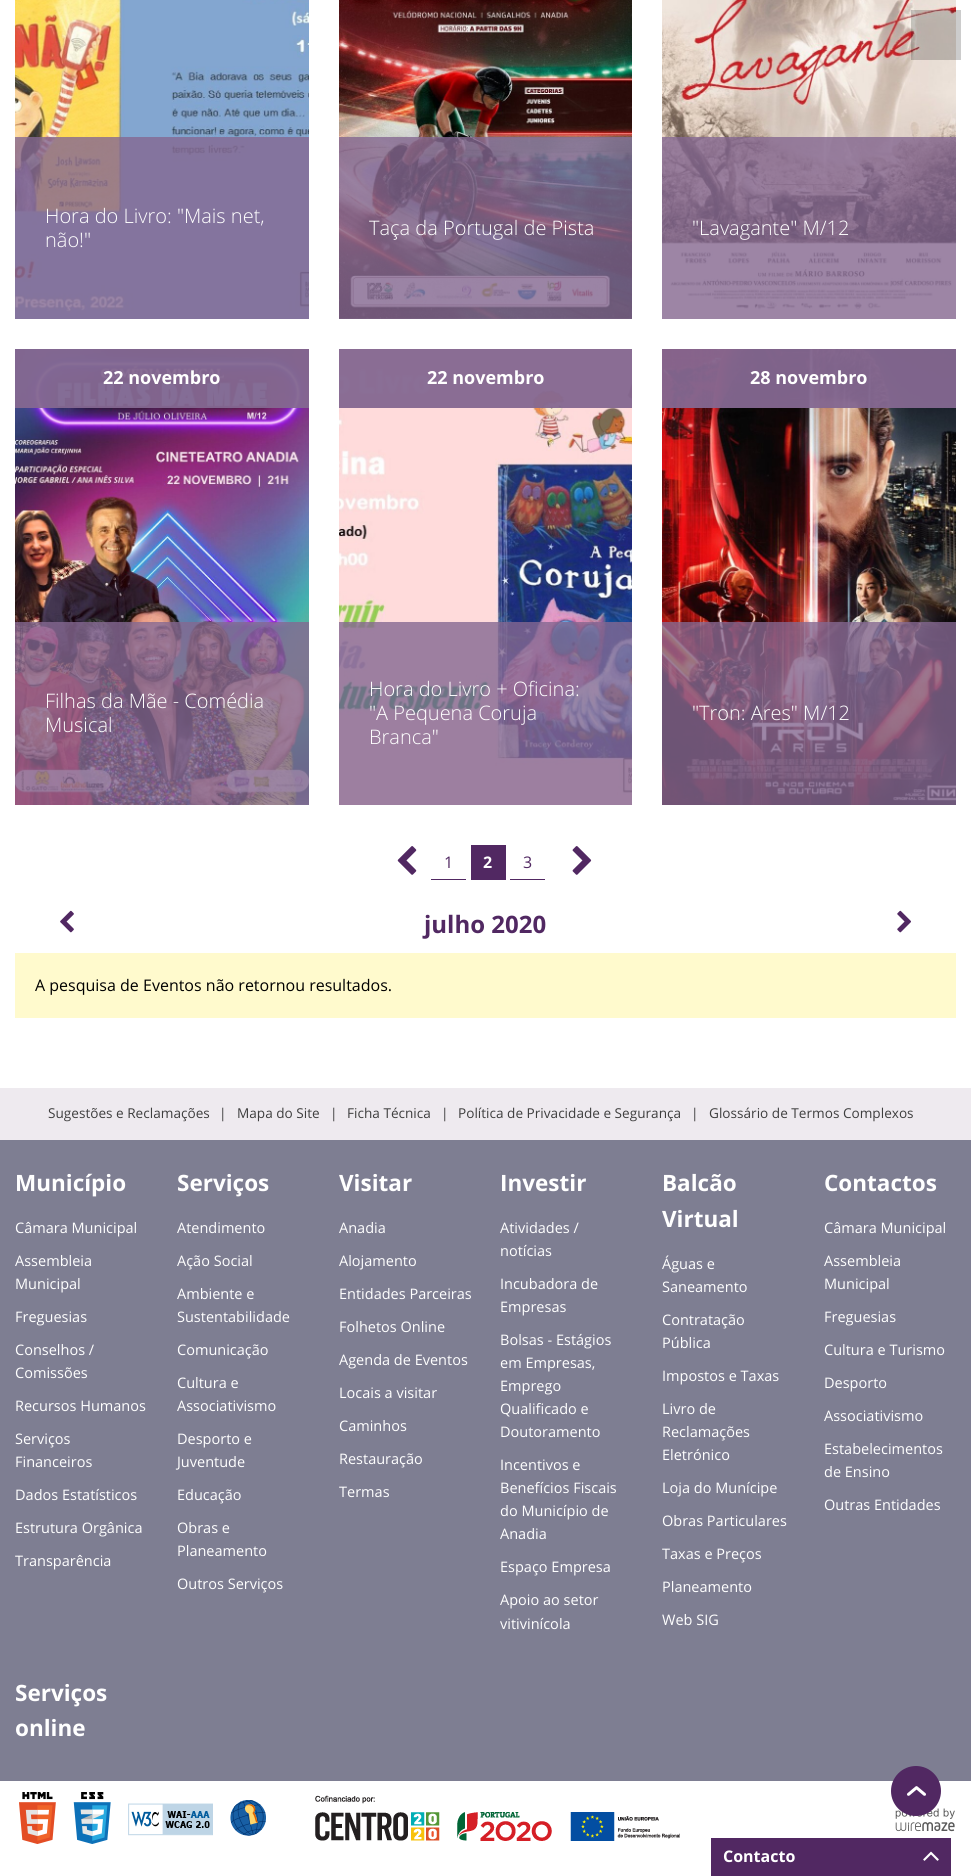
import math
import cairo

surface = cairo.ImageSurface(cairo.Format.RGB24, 971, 1876)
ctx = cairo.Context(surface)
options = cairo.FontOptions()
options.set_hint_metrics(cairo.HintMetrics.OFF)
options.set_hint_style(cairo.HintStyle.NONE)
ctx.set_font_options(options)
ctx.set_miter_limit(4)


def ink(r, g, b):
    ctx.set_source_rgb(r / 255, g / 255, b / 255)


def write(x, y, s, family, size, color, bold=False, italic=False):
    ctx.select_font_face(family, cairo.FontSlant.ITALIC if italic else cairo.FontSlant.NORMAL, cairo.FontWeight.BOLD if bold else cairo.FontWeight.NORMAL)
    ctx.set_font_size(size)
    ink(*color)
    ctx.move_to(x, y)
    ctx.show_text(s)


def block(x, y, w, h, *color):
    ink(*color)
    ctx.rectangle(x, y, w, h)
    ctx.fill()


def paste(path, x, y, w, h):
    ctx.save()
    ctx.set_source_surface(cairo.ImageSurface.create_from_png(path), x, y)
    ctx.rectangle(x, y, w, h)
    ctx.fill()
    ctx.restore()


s1 = dict(family="Open Sans Light", size=20, color=(255, 255, 255))
s2 = dict(family="Open Sans", size=18, color=(255, 255, 255), bold=True)
s3 = dict(family="Open Sans", size=16, color=(81, 40, 98))
s4 = dict(family="Open Sans", size=16, color=(255, 255, 255), bold=True)
s5 = dict(family="Open Sans", size=24, color=(81, 40, 98), bold=True)
s6 = dict(family="Open Sans", size=16, color=(0, 0, 0))
s7 = dict(family="Open Sans", size=13.6, color=(62, 62, 62))
s8 = dict(family="Open Sans", size=22.5, color=(255, 255, 255), bold=True)
s9 = dict(family="Open Sans", size=14.5, color=(255, 255, 255))

ink(255, 255, 255)
ctx.paint()
paste("pic3.png", 662, 0, 294, 319)
ctx.set_source_rgba(0, 0, 0, 0.2)
ctx.rectangle(911, 10, 50, 50)
ctx.fill()
paste("pic1.png", 15, 0, 294, 319)
ctx.set_source_rgba(0.522, 0.408, 0.569, 0.8)
ctx.rectangle(15, 137, 294, 182)
ctx.fill()
write(45, 223, "Hora do Livro: \"Mais net,", **s1)
write(45, 247, "não!\"", **s1)
paste("pic2.png", 339, 0, 293, 319)
ctx.set_source_rgba(0.522, 0.408, 0.569, 0.8)
ctx.rectangle(339, 137, 293, 182)
ctx.fill()
write(369, 235, "Taça da Portugal de Pista", **s1)
ctx.set_source_rgba(0.522, 0.408, 0.569, 0.8)
ctx.rectangle(662, 137, 294, 182)
ctx.fill()
write(692, 235, "\"Lavagante\" M/12", **s1)
paste("pic4.png", 15, 349, 294, 456)
ctx.set_source_rgba(0.522, 0.408, 0.569, 0.95)
ctx.rectangle(15, 349, 294, 59)
ctx.fill()
write(103, 384, "22 novembro", **s2)
ctx.set_source_rgba(0.522, 0.408, 0.569, 0.8)
ctx.rectangle(15, 622, 294, 183)
ctx.fill()
write(45, 708, "Filhas da Mãe - Comédia", **s1)
write(45, 732, "Musical", **s1)
paste("pic5.png", 339, 349, 293, 456)
ctx.set_source_rgba(0.522, 0.408, 0.569, 0.95)
ctx.rectangle(339, 349, 293, 59)
ctx.fill()
write(427, 384, "22 novembro", **s2)
ctx.set_source_rgba(0.522, 0.408, 0.569, 0.8)
ctx.rectangle(339, 622, 293, 183)
ctx.fill()
write(369, 696, "Hora do Livro + Oficina:", **s1)
write(369, 720, "\"A Pequena Coruja", **s1)
write(369, 744, "Branca\"", **s1)
paste("pic6.png", 662, 349, 294, 456)
ctx.set_source_rgba(0.522, 0.408, 0.569, 0.95)
ctx.rectangle(662, 349, 294, 59)
ctx.fill()
write(750, 384, "28 novembro", **s2)
ctx.set_source_rgba(0.522, 0.408, 0.569, 0.8)
ctx.rectangle(662, 622, 294, 183)
ctx.fill()
write(692, 720, "\"Tron: Ares\" M/12", **s1)
paste("pic7.png", 397, 846, 20, 29)
block(431, 879, 35, 1, 81, 40, 98)
write(444, 868, "1", **s3)
block(471, 845, 35, 35, 81, 40, 98)
write(483, 868, "2", **s4)
block(510, 879, 35, 1, 81, 40, 98)
write(523, 868, "3", **s3)
paste("pic8.png", 572, 846, 20, 29)
paste("pic9.png", 60, 910, 14, 23)
write(424, 933, "julho 2020", **s5)
paste("pic10.png", 897, 910, 14, 23)
block(15, 953, 941, 65, 255, 250, 205)
write(35, 991, "A pesquisa de Eventos não retornou resultados.", **s6)
block(0, 1088, 971, 52, 238, 234, 239)
write(48, 1118, "Sugestões e Reclamações", **s7)
write(219, 1118, "|", **s7)
write(237, 1118, "Mapa do Site", **s7)
write(330, 1118, "|", **s7)
write(347, 1118, "Ficha Técnica", **s7)
write(441, 1118, "|", **s7)
write(458, 1118, "Política de Privacidade e Segurança", **s7)
write(691, 1118, "|", **s7)
write(709, 1118, "Glossário de Termos Complexos", **s7)
block(0, 1140, 971, 641, 126, 126, 146)
write(15, 1191, "Município", **s8)
write(15, 1233, "Câmara Municipal", **s9)
write(15, 1266, "Assembleia", **s9)
write(15, 1289, "Municipal", **s9)
write(15, 1322, "Freguesias", **s9)
write(15, 1355, "Conselhos /", **s9)
write(15, 1378, "Comissões", **s9)
write(15, 1411, "Recursos Humanos", **s9)
write(15, 1444, "Serviços", **s9)
write(15, 1467, "Financeiros", **s9)
write(15, 1500, "Dados Estatísticos", **s9)
write(15, 1533, "Estrutura Orgânica", **s9)
write(15, 1566, "Transparência", **s9)
write(177, 1191, "Serviços", **s8)
write(177, 1233, "Atendimento", **s9)
write(177, 1266, "Ação Social", **s9)
write(177, 1299, "Ambiente e", **s9)
write(177, 1322, "Sustentabilidade", **s9)
write(177, 1355, "Comunicação", **s9)
write(177, 1388, "Cultura e", **s9)
write(177, 1411, "Associativismo", **s9)
write(177, 1444, "Desporto e", **s9)
write(177, 1467, "Juventude", **s9)
write(177, 1500, "Educação", **s9)
write(177, 1533, "Obras e", **s9)
write(177, 1556, "Planeamento", **s9)
write(177, 1589, "Outros Serviços", **s9)
write(339, 1191, "Visitar", **s8)
write(339, 1233, "Anadia", **s9)
write(339, 1266, "Alojamento", **s9)
write(339, 1299, "Entidades Parceiras", **s9)
write(339, 1332, "Folhetos Online", **s9)
write(339, 1365, "Agenda de Eventos", **s9)
write(339, 1398, "Locais a visitar", **s9)
write(339, 1431, "Caminhos", **s9)
write(339, 1464, "Restauração", **s9)
write(339, 1497, "Termas", **s9)
write(500, 1191, "Investir", **s8)
write(500, 1233, "Atividades /", **s9)
write(500, 1256, "notícias", **s9)
write(500, 1289, "Incubadora de", **s9)
write(500, 1312, "Empresas", **s9)
write(500, 1345, "Bolsas - Estágios", **s9)
write(500, 1368, "em Empresas,", **s9)
write(500, 1391, "Emprego", **s9)
write(500, 1414, "Qualificado e", **s9)
write(500, 1437, "Doutoramento", **s9)
write(500, 1470, "Incentivos e", **s9)
write(500, 1493, "Benefícios Fiscais", **s9)
write(500, 1516, "do Município de", **s9)
write(500, 1539, "Anadia", **s9)
write(500, 1572, "Espaço Empresa", **s9)
write(500, 1605, "Apoio ao setor", **s9)
write(500, 1629, "vitivinícola", **s9)
write(662, 1191, "Balcão", **s8)
write(662, 1227, "Virtual", **s8)
write(662, 1269, "Águas e", **s9)
write(662, 1292, "Saneamento", **s9)
write(662, 1325, "Contratação", **s9)
write(662, 1348, "Pública", **s9)
write(662, 1381, "Impostos e Taxas", **s9)
write(662, 1414, "Livro de", **s9)
write(662, 1437, "Reclamações", **s9)
write(662, 1460, "Eletrónico", **s9)
write(662, 1493, "Loja do Munícipe", **s9)
write(662, 1526, "Obras Particulares", **s9)
write(662, 1559, "Taxas e Preços", **s9)
write(662, 1592, "Planeamento", **s9)
write(662, 1625, "Web SIG", **s9)
write(824, 1191, "Contactos", **s8)
write(824, 1233, "Câmara Municipal", **s9)
write(824, 1266, "Assembleia", **s9)
write(824, 1289, "Municipal", **s9)
write(824, 1322, "Freguesias", **s9)
write(824, 1355, "Cultura e Turismo", **s9)
write(824, 1388, "Desporto", **s9)
write(824, 1421, "Associativismo", **s9)
write(824, 1454, "Estabelecimentos", **s9)
write(824, 1477, "de Ensino", **s9)
write(824, 1510, "Outras Entidades", **s9)
write(15, 1701, "Serviços", **s8)
write(15, 1736, "online", **s8)
paste("pic11.png", 19, 1792, 247, 52)
paste("pic12.png", 315, 1795, 365, 46)
paste("pic13.png", 895, 1808, 60, 24)
ink(81, 40, 98)
ctx.arc(916, 1791, 25, 0, 2 * math.pi)
ctx.fill()
paste("pic14.png", 907, 1786, 19, 10)
block(711, 1838, 240, 38, 81, 40, 98)
write(723, 1862, "Contacto", **s4)
paste("pic15.png", 923, 1851, 16, 10)
surface.write_to_png("screenshot.png")
